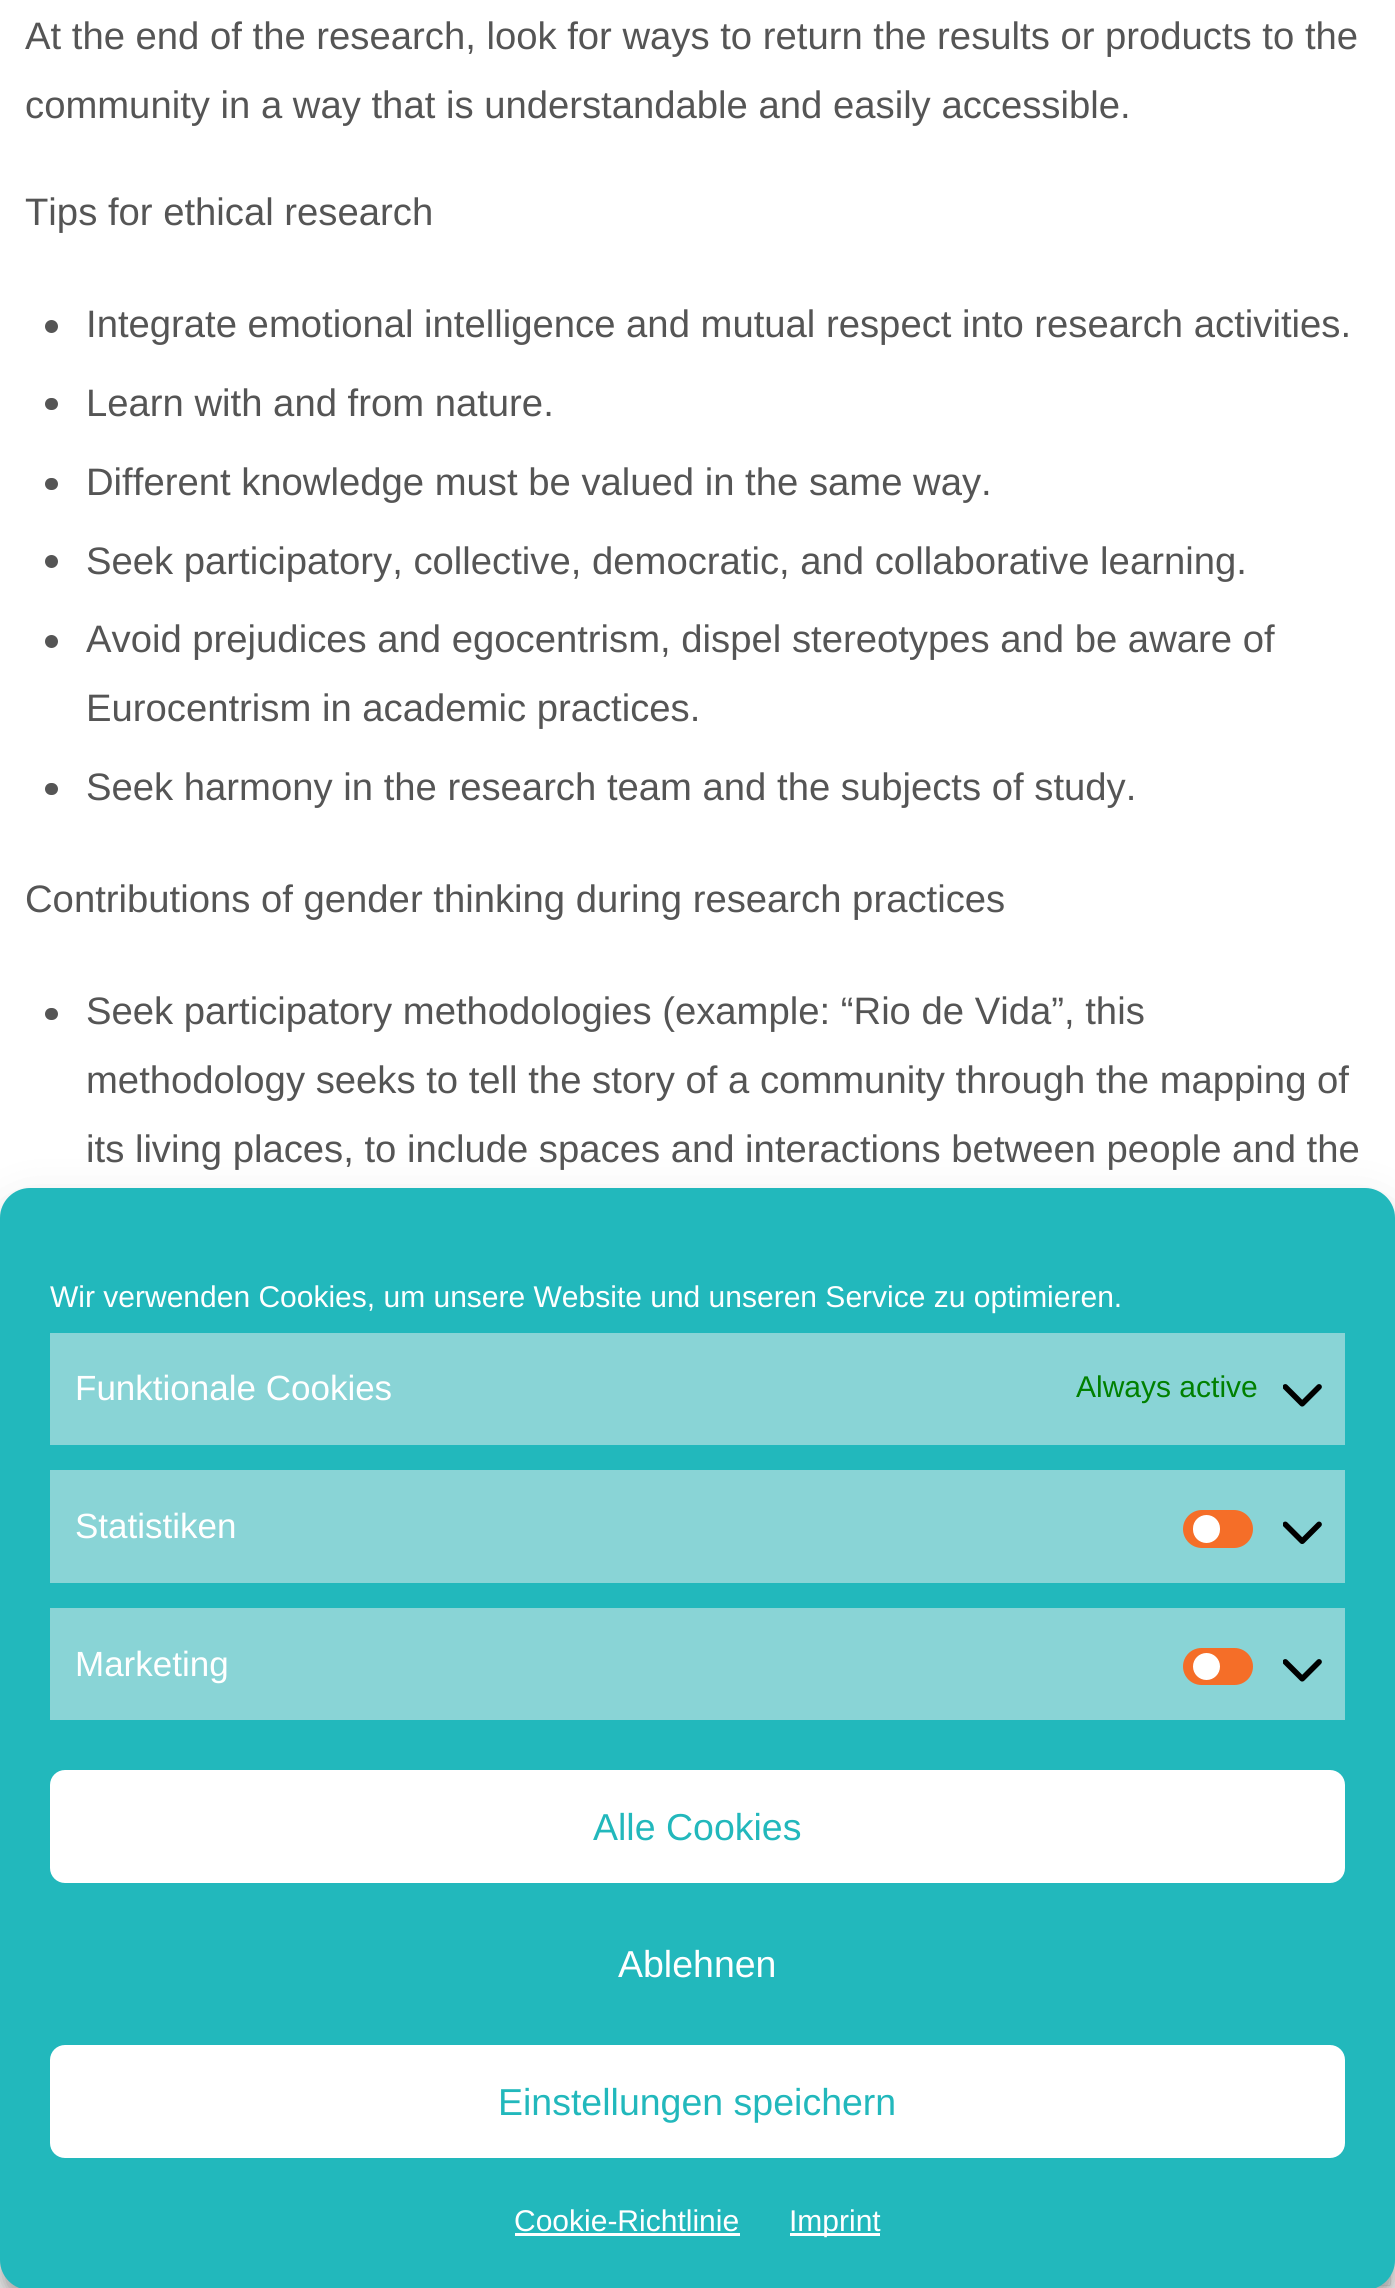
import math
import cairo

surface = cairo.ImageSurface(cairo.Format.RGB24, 1395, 2288)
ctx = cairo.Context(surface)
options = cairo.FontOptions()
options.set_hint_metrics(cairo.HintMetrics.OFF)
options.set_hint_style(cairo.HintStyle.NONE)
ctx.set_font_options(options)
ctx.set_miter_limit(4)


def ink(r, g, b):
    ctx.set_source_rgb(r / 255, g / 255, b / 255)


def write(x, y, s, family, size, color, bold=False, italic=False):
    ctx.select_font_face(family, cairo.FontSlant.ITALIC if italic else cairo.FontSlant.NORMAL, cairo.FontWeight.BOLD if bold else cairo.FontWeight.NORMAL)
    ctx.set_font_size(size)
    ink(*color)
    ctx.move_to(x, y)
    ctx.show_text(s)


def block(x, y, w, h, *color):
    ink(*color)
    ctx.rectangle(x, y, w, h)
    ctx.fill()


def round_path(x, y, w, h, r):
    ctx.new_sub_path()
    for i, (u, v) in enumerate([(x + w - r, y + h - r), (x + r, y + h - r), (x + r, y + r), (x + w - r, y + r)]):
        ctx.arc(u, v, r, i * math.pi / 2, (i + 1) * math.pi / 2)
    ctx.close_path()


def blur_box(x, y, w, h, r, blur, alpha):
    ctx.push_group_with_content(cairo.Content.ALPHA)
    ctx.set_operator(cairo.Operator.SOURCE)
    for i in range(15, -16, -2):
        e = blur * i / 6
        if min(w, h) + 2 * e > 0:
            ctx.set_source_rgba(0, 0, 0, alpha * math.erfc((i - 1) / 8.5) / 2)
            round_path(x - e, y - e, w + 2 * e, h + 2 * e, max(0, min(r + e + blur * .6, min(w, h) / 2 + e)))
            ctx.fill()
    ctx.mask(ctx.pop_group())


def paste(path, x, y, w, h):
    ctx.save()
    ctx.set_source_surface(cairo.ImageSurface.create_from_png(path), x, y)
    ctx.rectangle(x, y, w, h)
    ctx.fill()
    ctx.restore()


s1 = dict(family="Liberation Sans", size=38.25, color=(85, 85, 85))
s2 = dict(family="Liberation Sans", size=30, color=(255, 255, 255))
s3 = dict(family="Liberation Sans", size=35, color=(255, 255, 255))
s4 = dict(family="Liberation Sans", size=30, color=(0, 128, 0))
s5 = dict(family="Liberation Sans", size=37.5, color=(34, 184, 188))
s6 = dict(family="Liberation Sans", size=37.5, color=(255, 255, 255))

ink(255, 255, 255)
ctx.paint()
write(25, 49, "At the end of the research, look for ways to return the results or products to the", **s1)
write(25, 118, "community in a way that is understandable and easily accessible.", **s1)
write(25, 225, "Tips for ethical research", **s1)
ctx.new_path()
ctx.arc(51.5, 326.5, 6.5, 0, 2 * math.pi)
ctx.fill()
write(86, 337, "Integrate emotional intelligence and mutual respect into research activities.", **s1)
round_path(45, 398, 13, 12, 6)
ctx.fill()
write(86, 416, "Learn with and from nature.", **s1)
round_path(45, 478, 13, 12, 6)
ctx.fill()
write(86, 495, "Different knowledge must be valued in the same way.", **s1)
ctx.new_path()
ctx.arc(51.5, 561.5, 6.5, 0, 2 * math.pi)
ctx.fill()
write(86, 574, "Seek participatory, collective, democratic, and collaborative learning.", **s1)
ctx.new_path()
ctx.arc(51.5, 641.5, 6.5, 0, 2 * math.pi)
ctx.fill()
write(86, 652, "Avoid prejudices and egocentrism, dispel stereotypes and be aware of", **s1)
write(86, 721, "Eurocentrism in academic practices.", **s1)
round_path(45, 783, 13, 12, 6)
ctx.fill()
write(86, 800, "Seek harmony in the research team and the subjects of study.", **s1)
write(25, 912, "Contributions of gender thinking during research practices", **s1)
round_path(45, 1008, 13, 12, 6)
ctx.fill()
write(86, 1024, "Seek participatory methodologies (example: “Rio de Vida”, this", **s1)
write(86, 1093, "methodology seeks to tell the story of a community through the mapping of", **s1)
write(86, 1162, "its living places, to include spaces and interactions between people and the", **s1)
ink(0, 0, 0)
blur_box(1300, 2183, 90, 102, 0, 1, 0.28)
block(1385, 2280, 2, 2, 240, 240, 240)
ctx.rectangle(1301.5, 2184.5, 87, 99)
ink(242, 242, 242)
ctx.set_line_width(3)
ctx.stroke()
ink(0, 0, 0)
blur_box(0, 1203, 1395, 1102, 30, 7.5, 0.23)
blur_box(0, 1213, 1395, 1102, 30, 25, 0.19)
ink(34, 184, 188)
round_path(0, 1188, 1395, 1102, 30)
ctx.fill()
write(50, 1307, "Wir verwenden Cookies, um unsere Website und unseren Service zu optimieren.", **s2)
block(50, 1333, 1295, 112, 137, 212, 214)
write(75, 1400, "Funktionale Cookies", **s3)
write(1076, 1397, "Always active", **s4)
paste("pic1.png", 1283, 1384, 39, 23)
block(50, 1470, 1295, 113, 137, 212, 214)
write(75, 1538, "Statistiken", **s3)
ink(245, 110, 40)
round_path(1183, 1510, 70, 38, 19)
ctx.fill()
ink(255, 255, 255)
round_path(1193, 1515, 27, 28, 13.5)
ctx.fill()
paste("pic2.png", 1283, 1521, 39, 23)
block(50, 1608, 1295, 112, 137, 212, 214)
write(75, 1676, "Marketing", **s3)
ink(245, 110, 40)
round_path(1183, 1648, 70, 37, 18.5)
ctx.fill()
ink(255, 255, 255)
ctx.arc(1206.5, 1666.5, 13.5, 0, 2 * math.pi)
ctx.fill()
paste("pic1.png", 1283, 1659, 39, 23)
round_path(51.5, 1771.5, 1292, 110, 13.5)
ctx.fill_preserve()
ctx.stroke()
write(593, 1840, "Alle Cookies", **s5)
write(618, 1977, "Ablehnen", **s6)
round_path(51.5, 2046.5, 1292, 110, 13.5)
ctx.fill_preserve()
ctx.stroke()
write(498, 2115, "Einstellungen speichern", **s5)
write(514, 2231, "Cookie-Richtlinie", **s2)
block(515, 2233, 225, 3, 255, 255, 255)
block(790, 2233, 90, 3, 255, 255, 255)
write(789, 2231, "Imprint", **s2)
surface.write_to_png("screenshot.png")
